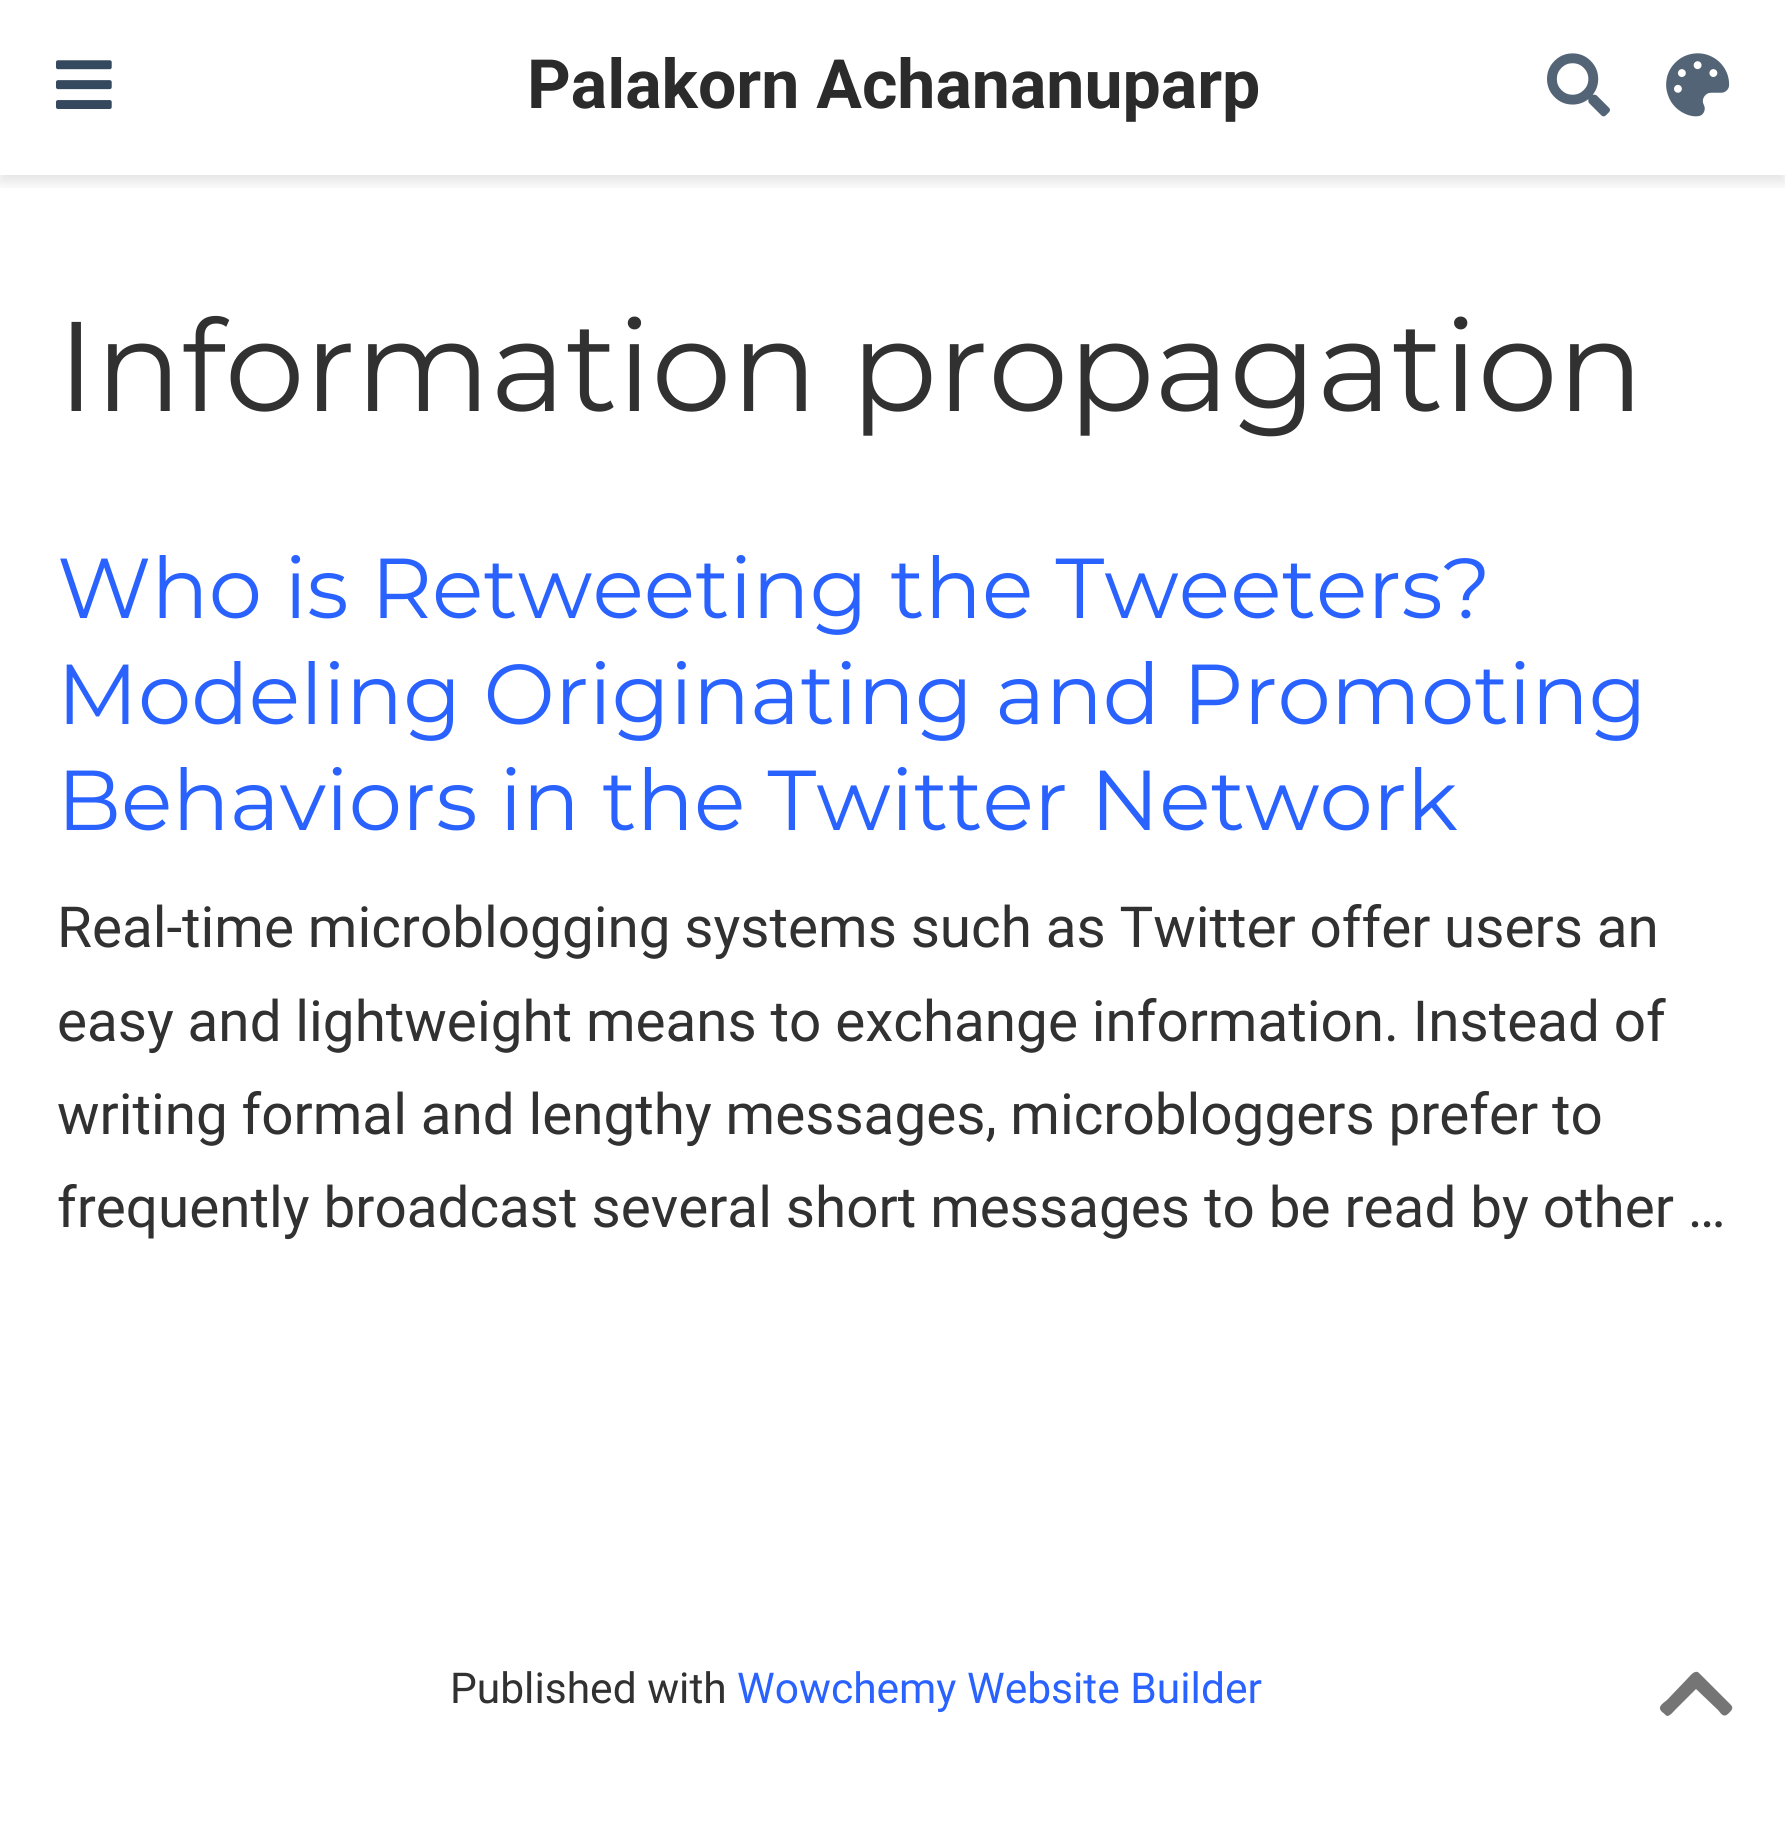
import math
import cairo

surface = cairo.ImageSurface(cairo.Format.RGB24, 1785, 1824)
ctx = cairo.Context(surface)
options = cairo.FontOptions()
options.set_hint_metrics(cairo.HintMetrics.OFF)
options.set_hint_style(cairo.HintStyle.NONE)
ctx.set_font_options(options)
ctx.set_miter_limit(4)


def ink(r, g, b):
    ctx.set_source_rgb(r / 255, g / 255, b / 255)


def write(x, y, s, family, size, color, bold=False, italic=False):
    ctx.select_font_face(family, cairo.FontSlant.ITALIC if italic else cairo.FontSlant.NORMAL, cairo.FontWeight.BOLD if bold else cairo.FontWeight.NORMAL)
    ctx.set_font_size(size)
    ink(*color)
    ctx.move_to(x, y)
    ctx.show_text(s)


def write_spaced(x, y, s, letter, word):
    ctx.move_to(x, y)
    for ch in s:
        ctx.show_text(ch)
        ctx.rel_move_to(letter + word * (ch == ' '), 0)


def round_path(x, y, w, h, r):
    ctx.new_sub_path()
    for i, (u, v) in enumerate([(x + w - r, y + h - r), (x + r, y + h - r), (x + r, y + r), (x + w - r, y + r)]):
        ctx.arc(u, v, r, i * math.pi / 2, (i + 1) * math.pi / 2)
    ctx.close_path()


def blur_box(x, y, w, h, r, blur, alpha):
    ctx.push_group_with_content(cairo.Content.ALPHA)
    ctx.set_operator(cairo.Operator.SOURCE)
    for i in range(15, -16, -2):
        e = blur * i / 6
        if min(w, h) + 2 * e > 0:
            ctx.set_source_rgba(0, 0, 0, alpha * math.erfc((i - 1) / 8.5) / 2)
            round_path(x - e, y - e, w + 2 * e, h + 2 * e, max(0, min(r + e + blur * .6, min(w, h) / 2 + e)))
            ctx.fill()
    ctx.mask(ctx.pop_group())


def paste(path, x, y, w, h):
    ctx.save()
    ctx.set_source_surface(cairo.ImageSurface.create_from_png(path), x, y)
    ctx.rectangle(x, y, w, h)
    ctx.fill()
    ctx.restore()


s1 = dict(family="Roboto", size=68, color=(43, 43, 43), bold=True)
s2 = dict(family="Montserrat", size=127.3, color=(49, 49, 49))
s3 = dict(family="Montserrat", size=84.9, color=(41, 98, 255))
s4 = dict(family="Roboto", size=42.5, color=(49, 49, 49))
s5 = dict(family="Roboto", size=42.5, color=(41, 98, 255))

ink(255, 255, 255)
ctx.paint()
ctx.save()
ctx.rectangle(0, 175, 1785, 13)
ctx.clip()
ink(0, 0, 0)
blur_box(0, 7, 1785, 175, 0, 7, 0.11)
ctx.restore()
paste("pic1.png", 56, 60, 56, 49)
write(527, 108, "Palakorn Achananuparp", **s1)
paste("pic2.png", 1547, 53, 63, 64)
paste("pic3.png", 1666, 53, 64, 64)
write(57, 411, "Information propagation", **s2)
write(57, 618, "Who is Retweeting the Tweeters?", **s3)
write(57, 724, "Modeling Originating and Promoting", **s3)
write(57, 830, "Behaviors in the Twitter Network", **s3)
ctx.select_font_face("Roboto")
ctx.set_font_size(56.6)
ink(49, 49, 49)
write_spaced(57, 947, "Real-time microblogging systems such as Twitter offer users an", 0, -0.25)
write_spaced(57, 1041, "easy and lightweight means to exchange information. Instead of", 0, -0.25)
write_spaced(57, 1134, "writing formal and lengthy messages, microbloggers prefer to", 0, -0.25)
write_spaced(57, 1227, "frequently broadcast several short messages to be read by other …", 0, -0.1)
write(450, 1703, "Published with", **s4)
write(737, 1703, "Wowchemy Website Builder", **s5)
ink(117, 117, 117)
ctx.new_path()
ctx.move_to(1699, 1673)
ctx.line_to(1731, 1705)
ctx.curve_to(1734, 1708, 1731, 1711, 1729, 1713)
ctx.curve_to(1724, 1718, 1722, 1715, 1718, 1710)
ctx.line_to(1696, 1689)
ctx.line_to(1675, 1710)
ctx.curve_to(1673, 1712, 1670, 1716, 1667, 1716)
ctx.curve_to(1665, 1715, 1664, 1713, 1662, 1712)
ctx.curve_to(1657, 1707, 1662, 1704, 1667, 1700)
ctx.line_to(1688, 1678)
ctx.curve_to(1690, 1676, 1695, 1669, 1699, 1673)
ctx.close_path()
ctx.fill()
surface.write_to_png("screenshot.png")
